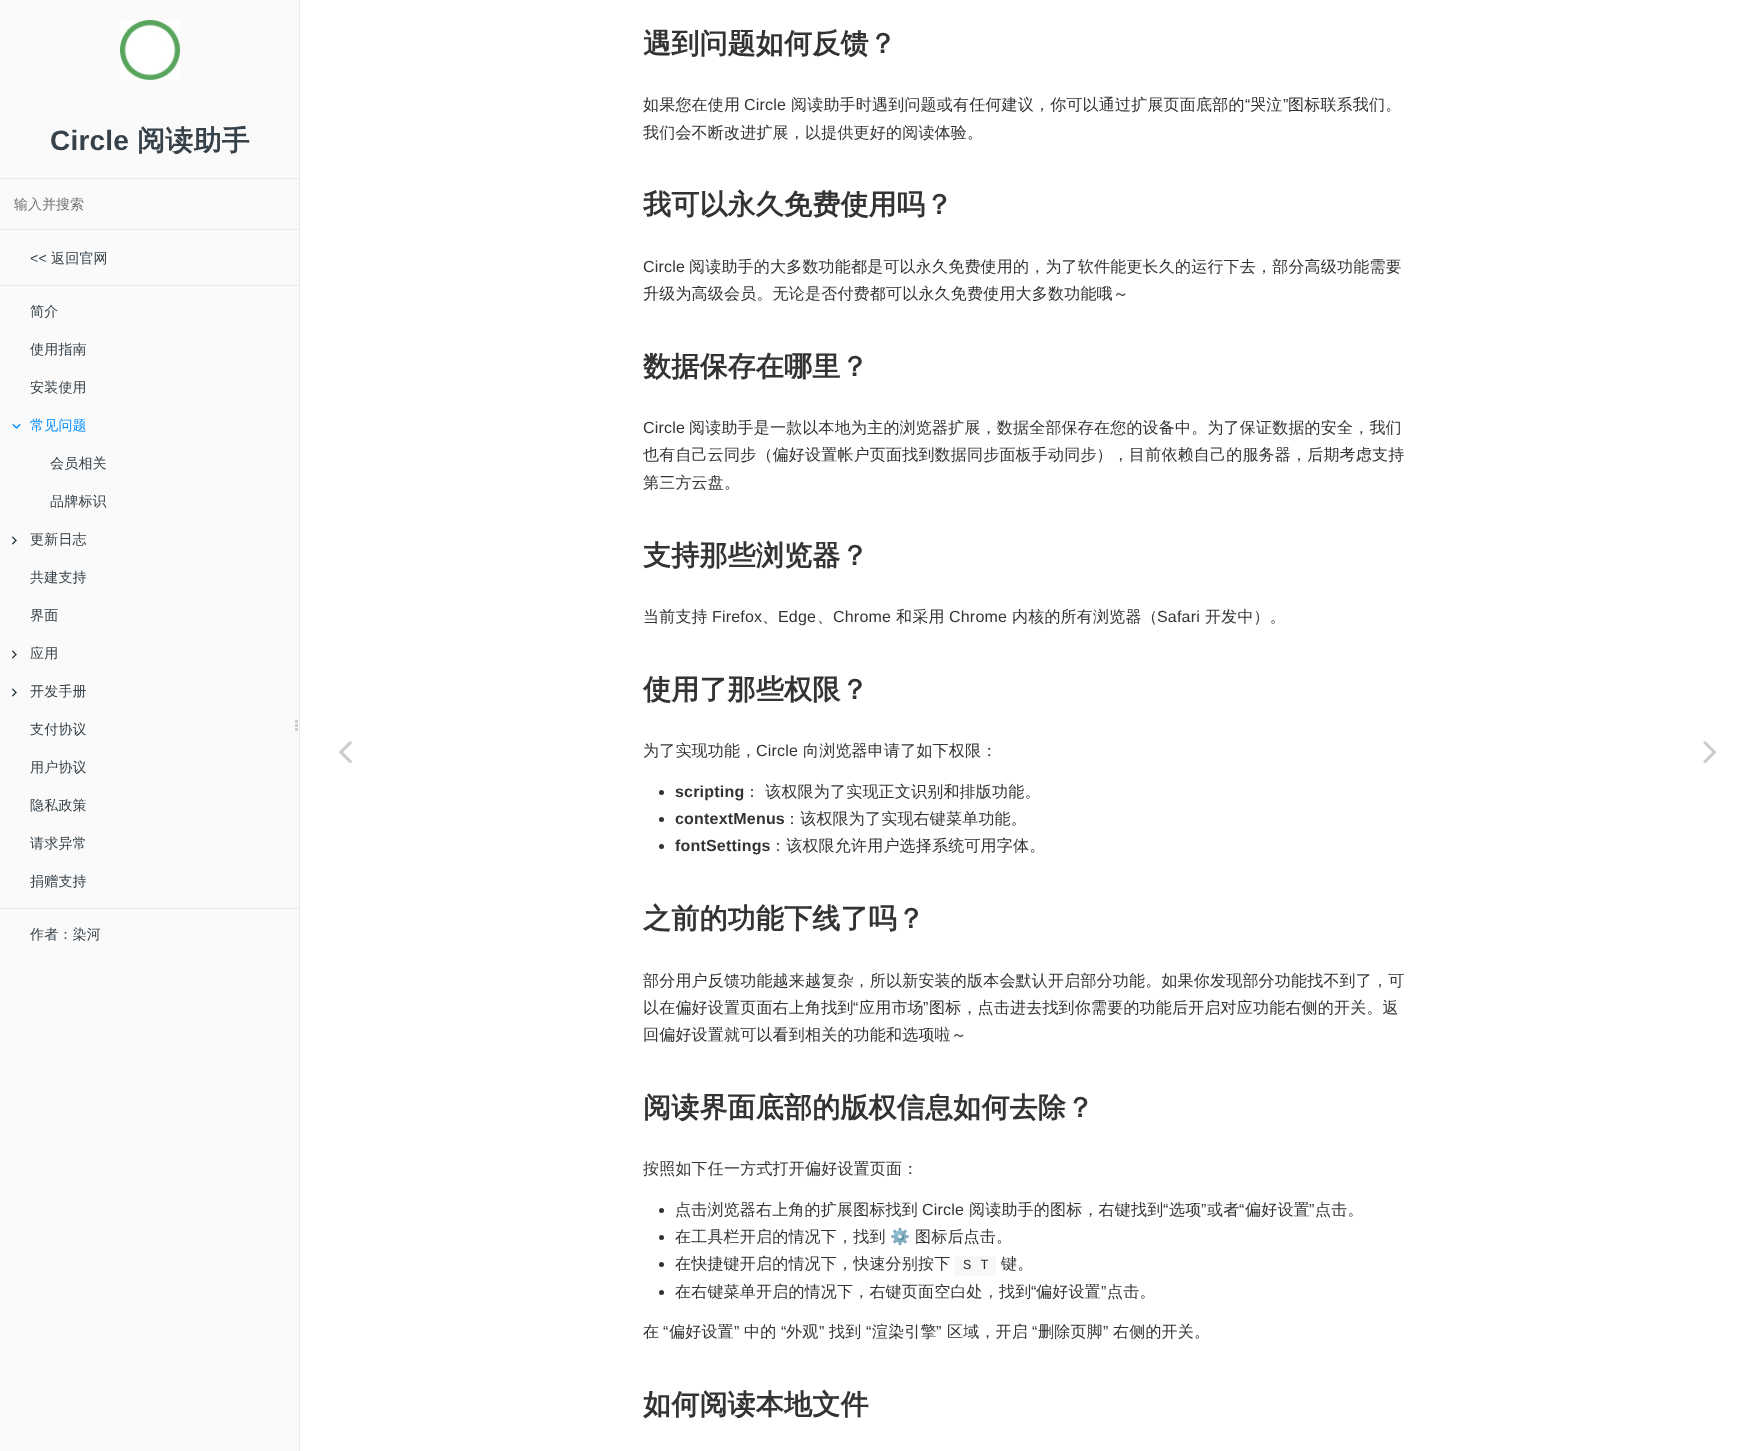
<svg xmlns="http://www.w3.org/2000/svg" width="1755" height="1451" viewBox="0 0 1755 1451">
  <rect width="100%" height="100%" fill="rgb(255,255,255)"/>
  <rect x="0" y="0" width="299" height="1451" fill="rgb(250,250,250)"/>
  <rect x="299" y="0" width="1" height="1451" fill="rgb(233,233,233)"/>
  <image x="120" y="20" width="60" height="60" href="pic1.png"/>
  <text x="50" y="150" font-family="Liberation Sans" font-size="28" font-weight="bold" letter-spacing="0.2" fill="rgb(54,65,73)">Circle</text>
  <text x="137" y="150" font-family="WenQuanYi Zen Hei" font-size="28" font-weight="bold" letter-spacing="0.2" fill="rgb(54,65,73)">阅读助手</text>
  <rect x="0" y="178" width="299" height="1" fill="rgb(233,233,233)"/>
  <rect x="0" y="229" width="299" height="1" fill="rgb(233,233,233)"/>
  <text x="14" y="209" font-family="WenQuanYi Zen Hei" font-size="14" font-weight="500" fill="rgb(117,117,117)">输入并搜索</text>
  <text x="30" y="263" font-family="Liberation Sans" font-size="14" letter-spacing="0.2" fill="rgb(54,65,73)">&lt;&lt;</text>
  <text x="51" y="263" font-family="WenQuanYi Zen Hei" font-size="14" font-weight="500" letter-spacing="0.2" fill="rgb(54,65,73)">返回官网</text>
  <rect x="0" y="285" width="299" height="1" fill="rgb(233,233,233)"/>
  <g font-family="WenQuanYi Zen Hei" font-size="14" font-weight="500" letter-spacing="0.2" fill="rgb(54,65,73)">
    <text x="30" y="316">简介</text>
    <text x="30" y="354">使用指南</text>
    <text x="30" y="392">安装使用</text>
  </g>
  <image x="12" y="424" width="9" height="5" href="pic2.png"/>
  <text x="30" y="430" font-family="WenQuanYi Zen Hei" font-size="14" font-weight="500" letter-spacing="0.2" fill="rgb(0,140,255)">常见问题</text>
  <image x="12" y="424" width="9" height="5" href="pic3.png"/>
  <g font-family="WenQuanYi Zen Hei" font-size="14" font-weight="500" letter-spacing="0.2" fill="rgb(54,65,73)">
    <text x="50" y="468">会员相关</text>
    <text x="50" y="506">品牌标识</text>
  </g>
  <image x="12" y="536" width="5" height="9" href="pic4.png"/>
  <text x="30" y="544" font-family="WenQuanYi Zen Hei" font-size="14" font-weight="500" letter-spacing="0.2" fill="rgb(54,65,73)">更新日志</text>
  <image x="12" y="536" width="5" height="9" href="pic5.png"/>
  <g font-family="WenQuanYi Zen Hei" font-size="14" font-weight="500" letter-spacing="0.2" fill="rgb(54,65,73)">
    <text x="30" y="582">共建支持</text>
    <text x="30" y="620">界面</text>
  </g>
  <image x="12" y="650" width="5" height="9" href="pic4.png"/>
  <text x="30" y="658" font-family="WenQuanYi Zen Hei" font-size="14" font-weight="500" letter-spacing="0.2" fill="rgb(54,65,73)">应用</text>
  <image x="12" y="650" width="5" height="9" href="pic5.png"/>
  <image x="12" y="688" width="5" height="9" href="pic4.png"/>
  <text x="30" y="696" font-family="WenQuanYi Zen Hei" font-size="14" font-weight="500" letter-spacing="0.2" fill="rgb(54,65,73)">开发手册</text>
  <image x="12" y="688" width="5" height="9" href="pic5.png"/>
  <g font-family="WenQuanYi Zen Hei" font-size="14" font-weight="500" letter-spacing="0.2" fill="rgb(54,65,73)">
    <text x="30" y="734">支付协议</text>
    <text x="30" y="772">用户协议</text>
    <text x="30" y="810">隐私政策</text>
    <text x="30" y="848">请求异常</text>
    <text x="30" y="886">捐赠支持</text>
  </g>
  <rect x="0" y="908" width="299" height="1" fill="rgb(233,233,233)"/>
  <text x="30" y="939" font-family="WenQuanYi Zen Hei" font-size="14" font-weight="500" letter-spacing="0.2" fill="rgb(54,65,73)">作者：染河</text>
  <image x="295" y="720" width="3" height="11" href="pic6.png"/>
  <image x="339" y="741" width="13" height="23" href="pic7.png"/>
  <text x="643" y="53" font-family="WenQuanYi Zen Hei" font-size="28" font-weight="bold" letter-spacing="0.2" fill="rgb(51,51,51)">遇到问题如何反馈？</text>
  <text x="643" y="110" font-family="WenQuanYi Zen Hei" font-size="16" font-weight="500" letter-spacing="0.2" fill="rgb(51,51,51)">如果您在使用</text>
  <text x="744" y="110" font-family="Liberation Sans" font-size="16" letter-spacing="0.2" fill="rgb(51,51,51)">Circle</text>
  <text x="791" y="110" font-family="WenQuanYi Zen Hei" font-size="16" font-weight="500" letter-spacing="0.2" fill="rgb(51,51,51)">阅读助手时遇到问题或有任何建议，你可以通过扩展页面底部的</text>
  <text x="1245" y="110" font-family="Liberation Sans" font-size="16" letter-spacing="0.2" fill="rgb(51,51,51)">“</text>
  <text x="1250" y="110" font-family="WenQuanYi Zen Hei" font-size="16" font-weight="500" letter-spacing="0.2" fill="rgb(51,51,51)">哭泣</text>
  <text x="1283" y="110" font-family="Liberation Sans" font-size="16" letter-spacing="0.2" fill="rgb(51,51,51)">”</text>
  <g font-family="WenQuanYi Zen Hei" font-size="16" font-weight="500" letter-spacing="0.2" fill="rgb(51,51,51)">
    <text x="1288" y="110">图标联系我们。</text>
    <text x="643" y="138">我们会不断改进扩展，以提供更好的阅读体验。</text>
  </g>
  <text x="643" y="214" font-family="WenQuanYi Zen Hei" font-size="28" font-weight="bold" letter-spacing="0.2" fill="rgb(51,51,51)">我可以永久免费使用吗？</text>
  <text x="643" y="272" font-family="Liberation Sans" font-size="16" letter-spacing="0.2" fill="rgb(51,51,51)">Circle</text>
  <g font-family="WenQuanYi Zen Hei" font-size="16" font-weight="500" letter-spacing="0.2" fill="rgb(51,51,51)">
    <text x="689" y="272">阅读助手的大多数功能都是可以永久免费使用的，为了软件能更长久的运行下去，部分高级功能需要</text>
    <text x="643" y="299">升级为高级会员。无论是否付费都可以永久免费使用大多数功能哦～</text>
  </g>
  <text x="643" y="376" font-family="WenQuanYi Zen Hei" font-size="28" font-weight="bold" letter-spacing="0.2" fill="rgb(51,51,51)">数据保存在哪里？</text>
  <text x="643" y="433" font-family="Liberation Sans" font-size="16" letter-spacing="0.2" fill="rgb(51,51,51)">Circle</text>
  <g font-family="WenQuanYi Zen Hei" font-size="16" font-weight="500" letter-spacing="0.2" fill="rgb(51,51,51)">
    <text x="689" y="433">阅读助手是一款以本地为主的浏览器扩展，数据全部保存在您的设备中。为了保证数据的安全，我们</text>
    <text>
      <tspan x="643" y="460">也有自己云同步（偏好设置帐户页面找到数据同步面板手动同步），目前依赖自己的服务器，后期考虑支持</tspan>
      <tspan x="643" y="488">第三方云盘。</tspan>
    </text>
  </g>
  <text x="643" y="565" font-family="WenQuanYi Zen Hei" font-size="28" font-weight="bold" letter-spacing="0.2" fill="rgb(51,51,51)">支持那些浏览器？</text>
  <text x="643" y="622" font-family="WenQuanYi Zen Hei" font-size="16" font-weight="500" letter-spacing="0.2" fill="rgb(51,51,51)">当前支持</text>
  <text x="712" y="622" font-family="Liberation Sans" font-size="16" letter-spacing="0.2" fill="rgb(51,51,51)">Firefox</text>
  <text x="762" y="622" font-family="WenQuanYi Zen Hei" font-size="16" font-weight="500" letter-spacing="0.2" fill="rgb(51,51,51)">、</text>
  <text x="778" y="622" font-family="Liberation Sans" font-size="16" letter-spacing="0.2" fill="rgb(51,51,51)">Edge</text>
  <text x="817" y="622" font-family="WenQuanYi Zen Hei" font-size="16" font-weight="500" letter-spacing="0.2" fill="rgb(51,51,51)">、</text>
  <text x="833" y="622" font-family="Liberation Sans" font-size="16" letter-spacing="0.2" fill="rgb(51,51,51)">Chrome</text>
  <text x="896" y="622" font-family="WenQuanYi Zen Hei" font-size="16" font-weight="500" letter-spacing="0.2" fill="rgb(51,51,51)">和采用</text>
  <text x="949" y="622" font-family="Liberation Sans" font-size="16" letter-spacing="0.2" fill="rgb(51,51,51)">Chrome</text>
  <text x="1012" y="622" font-family="WenQuanYi Zen Hei" font-size="16" font-weight="500" letter-spacing="0.2" fill="rgb(51,51,51)">内核的所有浏览器（</text>
  <text x="1157" y="622" font-family="Liberation Sans" font-size="16" letter-spacing="0.2" fill="rgb(51,51,51)">Safari</text>
  <text x="1205" y="622" font-family="WenQuanYi Zen Hei" font-size="16" font-weight="500" letter-spacing="0.2" fill="rgb(51,51,51)">开发中）。</text>
  <text x="643" y="699" font-family="WenQuanYi Zen Hei" font-size="28" font-weight="bold" letter-spacing="0.2" fill="rgb(51,51,51)">使用了那些权限？</text>
  <text x="643" y="756" font-family="WenQuanYi Zen Hei" font-size="16" font-weight="500" letter-spacing="0.2" fill="rgb(51,51,51)">为了实现功能，</text>
  <text x="756" y="756" font-family="Liberation Sans" font-size="16" letter-spacing="0.2" fill="rgb(51,51,51)">Circle</text>
  <text x="803" y="756" font-family="WenQuanYi Zen Hei" font-size="16" font-weight="500" letter-spacing="0.2" fill="rgb(51,51,51)">向浏览器申请了如下权限：</text>
  <circle cx="661.5" cy="792.5" r="2.5" fill="rgb(51,51,51)"/>
  <text x="675" y="797" font-family="Liberation Sans" font-size="16" font-weight="bold" letter-spacing="0.2" fill="rgb(51,51,51)">scripting</text>
  <text x="744" y="797" font-family="WenQuanYi Zen Hei" font-size="16" font-weight="500" letter-spacing="0.2" fill="rgb(51,51,51)">： 该权限为了实现正文识别和排版功能。</text>
  <circle cx="661.5" cy="819.5" r="2.5" fill="rgb(51,51,51)"/>
  <text x="675" y="824" font-family="Liberation Sans" font-size="16" font-weight="bold" letter-spacing="0.2" fill="rgb(51,51,51)">contextMenus</text>
  <text x="784" y="824" font-family="WenQuanYi Zen Hei" font-size="16" font-weight="500" letter-spacing="0.2" fill="rgb(51,51,51)">：该权限为了实现右键菜单功能。</text>
  <circle cx="661.5" cy="846.5" r="2.5" fill="rgb(51,51,51)"/>
  <text x="675" y="851" font-family="Liberation Sans" font-size="16" font-weight="bold" letter-spacing="0.2" fill="rgb(51,51,51)">fontSettings</text>
  <text x="770" y="851" font-family="WenQuanYi Zen Hei" font-size="16" font-weight="500" letter-spacing="0.2" fill="rgb(51,51,51)">：该权限允许用户选择系统可用字体。</text>
  <text x="643" y="928" font-family="WenQuanYi Zen Hei" font-size="28" font-weight="bold" letter-spacing="0.2" fill="rgb(51,51,51)">之前的功能下线了吗？</text>
  <g font-family="WenQuanYi Zen Hei" font-size="16" font-weight="500" letter-spacing="0.2" fill="rgb(51,51,51)">
    <text>
      <tspan x="643" y="986">部分用户反馈功能越来越复杂，所以新安装的版本会默认开启部分功能。如果你发现部分功能找不到了，可</tspan>
      <tspan x="643" y="1013">以在偏好设置页面右上角找到</tspan>
    </text>
  </g>
  <text x="853" y="1013" font-family="Liberation Sans" font-size="16" letter-spacing="0.2" fill="rgb(51,51,51)">“</text>
  <text x="859" y="1013" font-family="WenQuanYi Zen Hei" font-size="16" font-weight="500" letter-spacing="0.2" fill="rgb(51,51,51)">应用市场</text>
  <text x="923" y="1013" font-family="Liberation Sans" font-size="16" letter-spacing="0.2" fill="rgb(51,51,51)">”</text>
  <g font-family="WenQuanYi Zen Hei" font-size="16" font-weight="500" letter-spacing="0.2" fill="rgb(51,51,51)">
    <text x="929" y="1013">图标，点击进去找到你需要的功能后开启对应功能右侧的开关。返</text>
    <text x="643" y="1040">回偏好设置就可以看到相关的功能和选项啦～</text>
  </g>
  <text x="643" y="1117" font-family="WenQuanYi Zen Hei" font-size="28" font-weight="bold" letter-spacing="0.2" fill="rgb(51,51,51)">阅读界面底部的版权信息如何去除？</text>
  <g font-family="WenQuanYi Zen Hei" font-size="16" font-weight="500" letter-spacing="0.2" fill="rgb(51,51,51)">
    <text x="643" y="1174">按照如下任一方式打开偏好设置页面：</text>
    <text x="675" y="1215">点击浏览器右上角的扩展图标找到</text>
  </g>
  <text x="922" y="1215" font-family="Liberation Sans" font-size="16" letter-spacing="0.2" fill="rgb(51,51,51)">Circle</text>
  <text x="969" y="1215" font-family="WenQuanYi Zen Hei" font-size="16" font-weight="500" letter-spacing="0.2" fill="rgb(51,51,51)">阅读助手的图标，右键找到</text>
  <text x="1163" y="1215" font-family="Liberation Sans" font-size="16" letter-spacing="0.2" fill="rgb(51,51,51)">“</text>
  <text x="1169" y="1215" font-family="WenQuanYi Zen Hei" font-size="16" font-weight="500" letter-spacing="0.2" fill="rgb(51,51,51)">选项</text>
  <text x="1201" y="1215" font-family="Liberation Sans" font-size="16" letter-spacing="0.2" fill="rgb(51,51,51)">”</text>
  <text x="1207" y="1215" font-family="WenQuanYi Zen Hei" font-size="16" font-weight="500" letter-spacing="0.2" fill="rgb(51,51,51)">或者</text>
  <text x="1239" y="1215" font-family="Liberation Sans" font-size="16" letter-spacing="0.2" fill="rgb(51,51,51)">“</text>
  <text x="1245" y="1215" font-family="WenQuanYi Zen Hei" font-size="16" font-weight="500" letter-spacing="0.2" fill="rgb(51,51,51)">偏好设置</text>
  <text x="1309" y="1215" font-family="Liberation Sans" font-size="16" letter-spacing="0.2" fill="rgb(51,51,51)">”</text>
  <text x="1315" y="1215" font-family="WenQuanYi Zen Hei" font-size="16" font-weight="500" letter-spacing="0.2" fill="rgb(51,51,51)">点击。</text>
  <circle cx="661.5" cy="1210.5" r="2.5" fill="rgb(51,51,51)"/>
  <circle cx="661.5" cy="1237.5" r="2.5" fill="rgb(51,51,51)"/>
  <text x="675" y="1242" font-family="WenQuanYi Zen Hei" font-size="16" font-weight="500" letter-spacing="0.2" fill="rgb(51,51,51)">在工具栏开启的情况下，找到</text>
  <text x="890" y="1242" font-family="Noto Color Emoji" font-size="16" letter-spacing="0.2" fill="rgb(51,51,51)">⚙️</text>
  <text x="915" y="1242" font-family="WenQuanYi Zen Hei" font-size="16" font-weight="500" letter-spacing="0.2" fill="rgb(51,51,51)">图标后点击。</text>
  <circle cx="661.5" cy="1264.5" r="2.5" fill="rgb(51,51,51)"/>
  <text x="675" y="1269" font-family="WenQuanYi Zen Hei" font-size="16" font-weight="500" letter-spacing="0.2" fill="rgb(51,51,51)">在快捷键开启的情况下，快速分别按下</text>
  <rect x="955" y="1256" width="41" height="20" fill="rgb(247,247,247)"/>
  <text x="963" y="1269" font-family="Liberation Mono" font-size="14" letter-spacing="0.2" fill="rgb(51,51,51)">S T</text>
  <g font-family="WenQuanYi Zen Hei" font-size="16" font-weight="500" letter-spacing="0.2" fill="rgb(51,51,51)">
    <text x="1001" y="1269">键。</text>
    <text x="675" y="1297">在右键菜单开启的情况下，右键页面空白处，找到</text>
  </g>
  <text x="1031" y="1297" font-family="Liberation Sans" font-size="16" letter-spacing="0.2" fill="rgb(51,51,51)">“</text>
  <text x="1036" y="1297" font-family="WenQuanYi Zen Hei" font-size="16" font-weight="500" letter-spacing="0.2" fill="rgb(51,51,51)">偏好设置</text>
  <text x="1101" y="1297" font-family="Liberation Sans" font-size="16" letter-spacing="0.2" fill="rgb(51,51,51)">”</text>
  <text x="1107" y="1297" font-family="WenQuanYi Zen Hei" font-size="16" font-weight="500" letter-spacing="0.2" fill="rgb(51,51,51)">点击。</text>
  <circle cx="661.5" cy="1292.5" r="2.5" fill="rgb(51,51,51)"/>
  <text x="643" y="1337" font-family="WenQuanYi Zen Hei" font-size="16" font-weight="500" letter-spacing="0.2" fill="rgb(51,51,51)">在</text>
  <text x="663" y="1337" font-family="Liberation Sans" font-size="16" letter-spacing="0.2" fill="rgb(51,51,51)">“</text>
  <text x="669" y="1337" font-family="WenQuanYi Zen Hei" font-size="16" font-weight="500" letter-spacing="0.2" fill="rgb(51,51,51)">偏好设置</text>
  <text x="734" y="1337" font-family="Liberation Sans" font-size="16" letter-spacing="0.2" fill="rgb(51,51,51)">”</text>
  <text x="744" y="1337" font-family="WenQuanYi Zen Hei" font-size="16" font-weight="500" letter-spacing="0.2" fill="rgb(51,51,51)">中的</text>
  <text x="781" y="1337" font-family="Liberation Sans" font-size="16" letter-spacing="0.2" fill="rgb(51,51,51)">“</text>
  <text x="786" y="1337" font-family="WenQuanYi Zen Hei" font-size="16" font-weight="500" letter-spacing="0.2" fill="rgb(51,51,51)">外观</text>
  <text x="819" y="1337" font-family="Liberation Sans" font-size="16" letter-spacing="0.2" fill="rgb(51,51,51)">”</text>
  <text x="829" y="1337" font-family="WenQuanYi Zen Hei" font-size="16" font-weight="500" letter-spacing="0.2" fill="rgb(51,51,51)">找到</text>
  <text x="866" y="1337" font-family="Liberation Sans" font-size="16" letter-spacing="0.2" fill="rgb(51,51,51)">“</text>
  <text x="872" y="1337" font-family="WenQuanYi Zen Hei" font-size="16" font-weight="500" letter-spacing="0.2" fill="rgb(51,51,51)">渲染引擎</text>
  <text x="936" y="1337" font-family="Liberation Sans" font-size="16" letter-spacing="0.2" fill="rgb(51,51,51)">”</text>
  <text x="947" y="1337" font-family="WenQuanYi Zen Hei" font-size="16" font-weight="500" letter-spacing="0.2" fill="rgb(51,51,51)">区域，开启</text>
  <text x="1032" y="1337" font-family="Liberation Sans" font-size="16" letter-spacing="0.2" fill="rgb(51,51,51)">“</text>
  <text x="1038" y="1337" font-family="WenQuanYi Zen Hei" font-size="16" font-weight="500" letter-spacing="0.2" fill="rgb(51,51,51)">删除页脚</text>
  <text x="1103" y="1337" font-family="Liberation Sans" font-size="16" letter-spacing="0.2" fill="rgb(51,51,51)">”</text>
  <text x="1113" y="1337" font-family="WenQuanYi Zen Hei" font-size="16" font-weight="500" letter-spacing="0.2" fill="rgb(51,51,51)">右侧的开关。</text>
  <text x="643" y="1414" font-family="WenQuanYi Zen Hei" font-size="28" font-weight="bold" letter-spacing="0.2" fill="rgb(51,51,51)">如何阅读本地文件</text>
  <image x="1703" y="741" width="14" height="23" href="pic8.png"/>
</svg>
